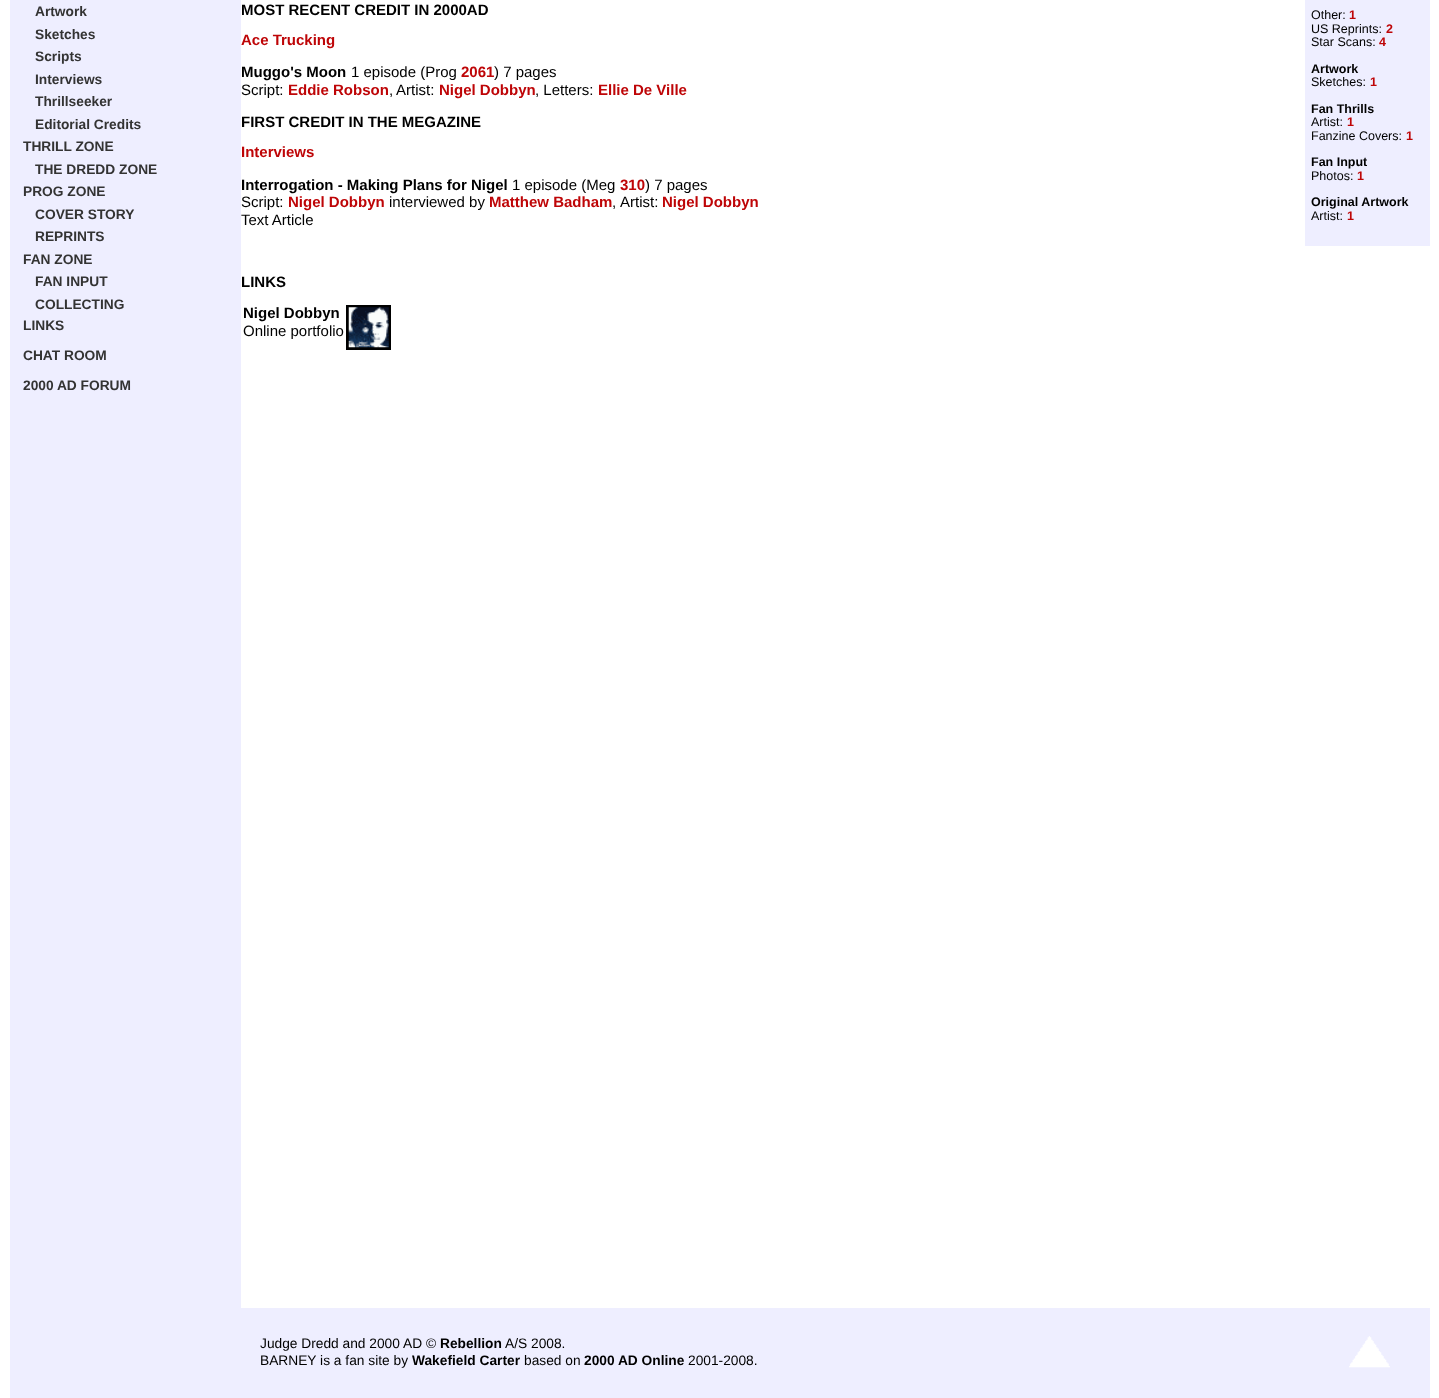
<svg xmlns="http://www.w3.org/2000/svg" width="1439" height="1398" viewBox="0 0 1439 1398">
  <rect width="100%" height="100%" fill="rgb(255,255,255)"/>
  <rect x="10" y="0" width="231" height="1398" fill="rgb(238,238,255)"/>
  <g font-family="Liberation Sans" font-size="13.75" font-weight="bold" fill="rgb(51,51,51)">
    <text>
      <tspan x="35" y="16">Artwork</tspan>
      <tspan x="35" y="39">Sketches</tspan>
      <tspan x="35" y="61">Scripts</tspan>
      <tspan x="35" y="84">Interviews</tspan>
      <tspan x="35" y="106">Thrillseeker</tspan>
      <tspan x="35" y="129">Editorial Credits</tspan>
    </text>
    <text x="23" y="151">THRILL ZONE</text>
    <text x="35" y="174">THE DREDD ZONE</text>
    <text x="23" y="196">PROG ZONE</text>
    <text>
      <tspan x="35" y="219">COVER STORY</tspan>
      <tspan x="35" y="241">REPRINTS</tspan>
    </text>
    <text x="23" y="264">FAN ZONE</text>
    <text>
      <tspan x="35" y="286">FAN INPUT</tspan>
      <tspan x="35" y="309">COLLECTING</tspan>
    </text>
    <text x="23" y="330">LINKS</text>
    <text x="23" y="360">CHAT ROOM</text>
    <text x="23" y="390">2000 AD FORUM</text>
  </g>
  <text x="241" y="15" font-family="Liberation Sans" font-size="15" font-weight="bold" fill="rgb(0,0,0)">MOST RECENT CREDIT IN 2000AD</text>
  <rect x="1305" y="0" width="125" height="246" fill="rgb(238,238,255)"/>
  <text x="1311" y="19" font-family="Liberation Sans" font-size="12.5" fill="rgb(0,0,0)">Other:</text>
  <text x="1349" y="19" font-family="Liberation Sans" font-size="12.5" font-weight="bold" fill="rgb(190,5,7)">1</text>
  <text x="1311" y="33" font-family="Liberation Sans" font-size="12.5" fill="rgb(0,0,0)">US Reprints:</text>
  <text x="1386" y="33" font-family="Liberation Sans" font-size="12.5" font-weight="bold" fill="rgb(190,5,7)">2</text>
  <text x="1311" y="46" font-family="Liberation Sans" font-size="12.5" fill="rgb(0,0,0)">Star Scans:</text>
  <text x="1379" y="46" font-family="Liberation Sans" font-size="12.5" font-weight="bold" fill="rgb(190,5,7)">4</text>
  <text x="1311" y="73" font-family="Liberation Sans" font-size="12.5" font-weight="bold" fill="rgb(0,0,0)">Artwork</text>
  <text x="1311" y="86" font-family="Liberation Sans" font-size="12.5" fill="rgb(0,0,0)">Sketches:</text>
  <text x="1370" y="86" font-family="Liberation Sans" font-size="12.5" font-weight="bold" fill="rgb(190,5,7)">1</text>
  <text x="1311" y="113" font-family="Liberation Sans" font-size="12.5" font-weight="bold" fill="rgb(0,0,0)">Fan Thrills</text>
  <text x="1311" y="126" font-family="Liberation Sans" font-size="12.5" fill="rgb(0,0,0)">Artist:</text>
  <text x="1347" y="126" font-family="Liberation Sans" font-size="12.5" font-weight="bold" fill="rgb(190,5,7)">1</text>
  <text x="1311" y="140" font-family="Liberation Sans" font-size="12.5" fill="rgb(0,0,0)">Fanzine Covers:</text>
  <text x="1406" y="140" font-family="Liberation Sans" font-size="12.5" font-weight="bold" fill="rgb(190,5,7)">1</text>
  <text x="1311" y="166" font-family="Liberation Sans" font-size="12.5" font-weight="bold" fill="rgb(0,0,0)">Fan Input</text>
  <text x="1311" y="180" font-family="Liberation Sans" font-size="12.5" fill="rgb(0,0,0)">Photos:</text>
  <text x="1357" y="180" font-family="Liberation Sans" font-size="12.5" font-weight="bold" fill="rgb(190,5,7)">1</text>
  <text x="1311" y="206" font-family="Liberation Sans" font-size="12.5" font-weight="bold" fill="rgb(0,0,0)">Original Artwork</text>
  <text x="1311" y="220" font-family="Liberation Sans" font-size="12.5" fill="rgb(0,0,0)">Artist:</text>
  <text x="1347" y="220" font-family="Liberation Sans" font-size="12.5" font-weight="bold" fill="rgb(190,5,7)">1</text>
  <text x="241" y="45" font-family="Liberation Sans" font-size="15" font-weight="bold" fill="rgb(190,5,7)">Ace Trucking</text>
  <text x="241" y="77" font-family="Liberation Sans" font-size="15" font-weight="bold" fill="rgb(0,0,0)">Muggo's Moon</text>
  <text x="351" y="77" font-family="Liberation Sans" font-size="15" fill="rgb(0,0,0)">1 episode (Prog</text>
  <text x="461" y="77" font-family="Liberation Sans" font-size="15" font-weight="bold" fill="rgb(190,5,7)">2061</text>
  <g font-family="Liberation Sans" font-size="15" fill="rgb(0,0,0)">
    <text x="494" y="77">) 7 pages</text>
    <text x="241" y="95">Script:</text>
  </g>
  <text x="288" y="95" font-family="Liberation Sans" font-size="15" font-weight="bold" fill="rgb(190,5,7)">Eddie Robson</text>
  <g font-family="Liberation Sans" font-size="15" fill="rgb(0,0,0)">
    <text x="389" y="95">,</text>
    <text x="396" y="95">Artist:</text>
  </g>
  <text x="439" y="95" font-family="Liberation Sans" font-size="15" font-weight="bold" fill="rgb(190,5,7)">Nigel Dobbyn</text>
  <text x="535" y="95" font-family="Liberation Sans" font-size="15" fill="rgb(0,0,0)">, Letters:</text>
  <text x="598" y="95" font-family="Liberation Sans" font-size="15" font-weight="bold" fill="rgb(190,5,7)">Ellie De Ville</text>
  <text x="241" y="127" font-family="Liberation Sans" font-size="15" font-weight="bold" fill="rgb(0,0,0)">FIRST CREDIT IN THE MEGAZINE</text>
  <text x="241" y="157" font-family="Liberation Sans" font-size="15" font-weight="bold" fill="rgb(190,5,7)">Interviews</text>
  <text x="241" y="190" font-family="Liberation Sans" font-size="15" font-weight="bold" fill="rgb(0,0,0)">Interrogation - Making Plans for Nigel</text>
  <text x="512" y="190" font-family="Liberation Sans" font-size="15" fill="rgb(0,0,0)">1 episode (Meg</text>
  <text x="620" y="190" font-family="Liberation Sans" font-size="15" font-weight="bold" fill="rgb(190,5,7)">310</text>
  <g font-family="Liberation Sans" font-size="15" fill="rgb(0,0,0)">
    <text x="645" y="190">) 7 pages</text>
    <text x="241" y="207">Script:</text>
  </g>
  <text x="288" y="207" font-family="Liberation Sans" font-size="15" font-weight="bold" fill="rgb(190,5,7)">Nigel Dobbyn</text>
  <text x="389" y="207" font-family="Liberation Sans" font-size="15" fill="rgb(0,0,0)">interviewed by</text>
  <text x="489" y="207" font-family="Liberation Sans" font-size="15" font-weight="bold" fill="rgb(190,5,7)">Matthew Badham</text>
  <g font-family="Liberation Sans" font-size="15" fill="rgb(0,0,0)">
    <text x="612" y="207">,</text>
    <text x="620" y="207">Artist:</text>
  </g>
  <text x="662" y="207" font-family="Liberation Sans" font-size="15" font-weight="bold" fill="rgb(190,5,7)">Nigel Dobbyn</text>
  <text x="241" y="225" font-family="Liberation Sans" font-size="15" fill="rgb(0,0,0)">Text Article</text>
  <g font-family="Liberation Sans" font-size="15" font-weight="bold" fill="rgb(0,0,0)">
    <text x="241" y="287">LINKS</text>
    <text x="243" y="318">Nigel Dobbyn</text>
  </g>
  <text x="243" y="336" font-family="Liberation Sans" font-size="15" fill="rgb(0,0,0)">Online portfolio</text>
  <rect x="347.5" y="306.5" width="42" height="42" fill="none" stroke="rgb(0,0,0)" stroke-width="3"/>
  <image x="348" y="307" width="41" height="41" href="pic1.png"/>
  <rect x="241" y="1308" width="1189" height="90" fill="rgb(238,238,255)"/>
  <text x="260" y="1348" font-family="Liberation Sans" font-size="13.75" fill="rgb(0,0,0)">Judge Dredd and 2000 AD ©</text>
  <text x="440" y="1348" font-family="Liberation Sans" font-size="13.75" font-weight="bold" fill="rgb(0,0,0)">Rebellion</text>
  <text x="505" y="1348" font-family="Liberation Sans" font-size="13.75" fill="rgb(0,0,0)">A/S 2008.</text>
  <image x="1349" y="1336" width="41" height="32" href="pic2.png"/>
  <text x="260" y="1365" font-family="Liberation Sans" font-size="13.75" fill="rgb(0,0,0)">BARNEY is a fan site by</text>
  <text x="412" y="1365" font-family="Liberation Sans" font-size="13.75" font-weight="bold" fill="rgb(0,0,0)">Wakefield Carter</text>
  <text x="524" y="1365" font-family="Liberation Sans" font-size="13.75" fill="rgb(0,0,0)">based on</text>
  <text x="584" y="1365" font-family="Liberation Sans" font-size="13.75" font-weight="bold" fill="rgb(0,0,0)">2000 AD Online</text>
  <text x="688" y="1365" font-family="Liberation Sans" font-size="13.75" fill="rgb(0,0,0)">2001-2008.</text>
</svg>
